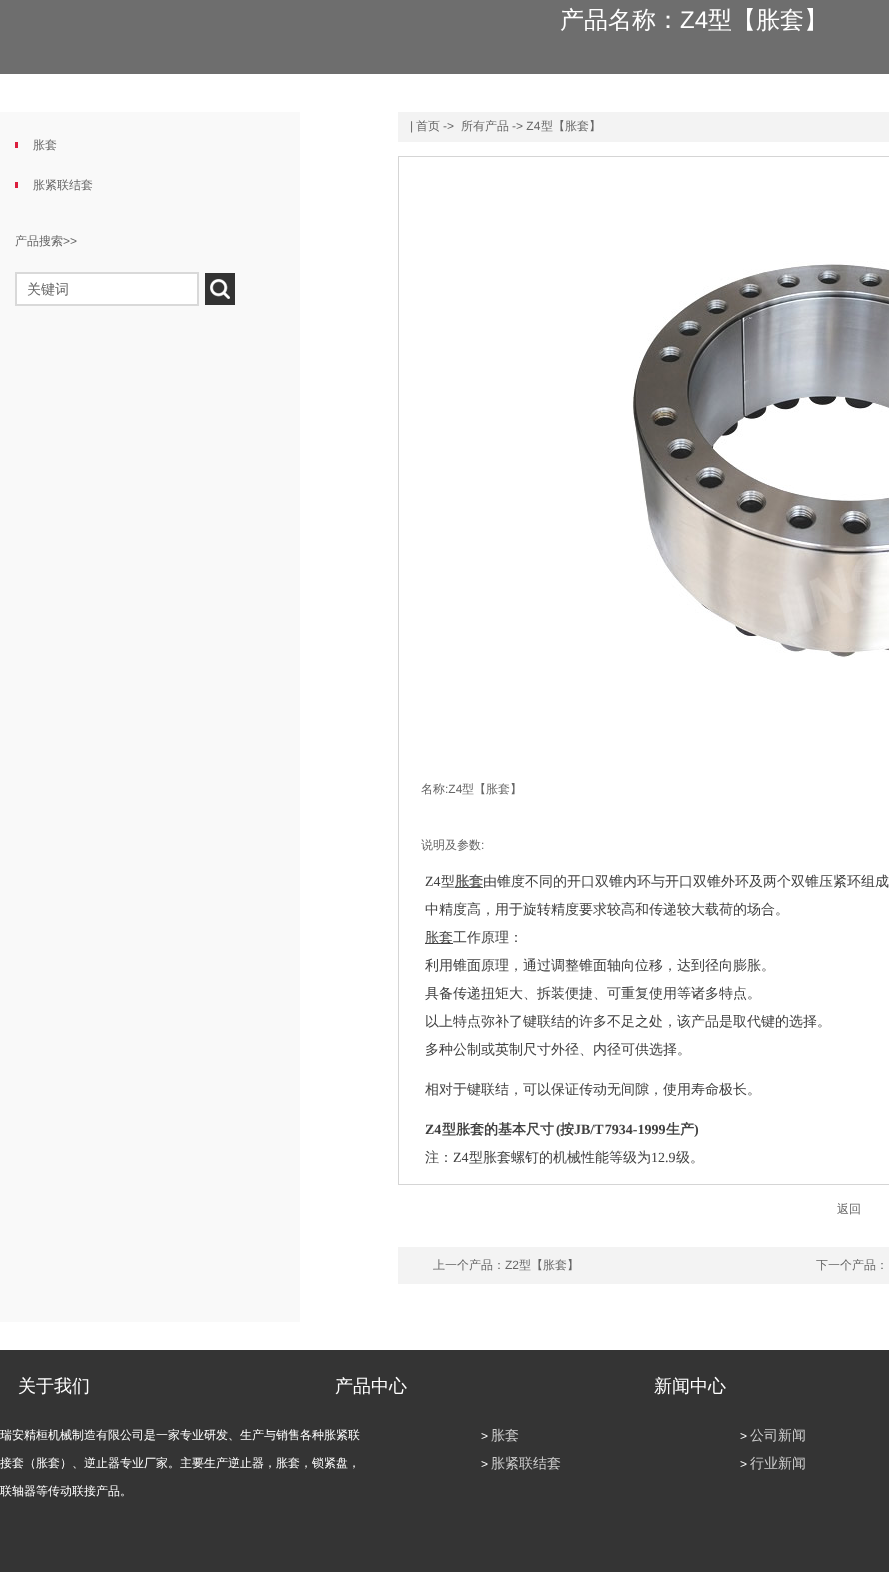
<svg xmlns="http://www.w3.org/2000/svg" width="889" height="1572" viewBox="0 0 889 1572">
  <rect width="100%" height="100%" fill="rgb(255,255,255)"/>
  <rect x="0" y="0" width="889" height="74" fill="rgb(110,110,110)"/>
  <text x="560" y="28" font-family="WenQuanYi Zen Hei" font-size="24" font-weight="500" fill="rgb(255,255,255)">产品名称：</text>
  <text x="680" y="28" font-family="Liberation Sans" font-size="24" fill="rgb(255,255,255)">Z4</text>
  <text x="708" y="28" font-family="WenQuanYi Zen Hei" font-size="24" font-weight="500" fill="rgb(255,255,255)">型【胀套】</text>
  <rect x="0" y="112" width="300" height="1210" fill="rgb(249,249,249)"/>
  <rect x="15" y="142" width="3" height="6" fill="rgb(220,31,62)"/>
  <text x="33" y="149" font-family="WenQuanYi Zen Hei" font-size="12" font-weight="500" fill="rgb(102,102,102)">胀套</text>
  <rect x="15" y="182" width="3" height="6" fill="rgb(220,31,62)"/>
  <g font-family="WenQuanYi Zen Hei" font-size="12" font-weight="500" fill="rgb(102,102,102)">
    <text x="33" y="189">胀紧联结套</text>
    <text x="15" y="245">产品搜索</text>
  </g>
  <text x="63" y="245" font-family="Liberation Sans" font-size="12" fill="rgb(102,102,102)">&gt;&gt;</text>
  <rect x="16" y="273" width="182" height="32" fill="rgb(255,255,255)" stroke="rgb(217,217,217)" stroke-width="2"/>
  <text x="27" y="294" font-family="WenQuanYi Zen Hei" font-size="14" font-weight="500" fill="rgb(102,102,102)">关键词</text>
  <rect x="205" y="273" width="30" height="32" fill="rgb(51,51,51)"/>
  <image x="210" y="279" width="20" height="20" href="pic1.png"/>
  <rect x="398" y="112" width="491" height="30" fill="rgb(243,243,243)"/>
  <text x="410" y="130" font-family="Liberation Sans" font-size="12" fill="rgb(102,102,102)">|</text>
  <text x="416" y="130" font-family="WenQuanYi Zen Hei" font-size="12" font-weight="500" fill="rgb(102,102,102)">首页</text>
  <text x="443" y="130" font-family="Liberation Sans" font-size="12" fill="rgb(102,102,102)">-&gt;</text>
  <text x="461" y="130" font-family="WenQuanYi Zen Hei" font-size="12" font-weight="500" fill="rgb(102,102,102)">所有产品</text>
  <text x="512" y="130" font-family="Liberation Sans" font-size="12" fill="rgb(102,102,102)">-&gt; Z4</text>
  <text x="541" y="130" font-family="WenQuanYi Zen Hei" font-size="12" font-weight="500" fill="rgb(102,102,102)">型【胀套】</text>
  <rect x="398.5" y="156.5" width="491" height="1028" fill="none" stroke="rgb(213,213,213)"/>
  <image x="632" y="261" width="257" height="397" href="pic2.png"/>
  <text x="421" y="793" font-family="WenQuanYi Zen Hei" font-size="12" font-weight="500" fill="rgb(102,102,102)">名称</text>
  <text x="445" y="793" font-family="Liberation Sans" font-size="12" fill="rgb(102,102,102)">:Z4</text>
  <g font-family="WenQuanYi Zen Hei" font-size="12" font-weight="500" fill="rgb(102,102,102)">
    <text x="462" y="793">型【胀套】</text>
    <text x="421" y="849">说明及参数</text>
  </g>
  <text x="481" y="849" font-family="Liberation Sans" font-size="12" fill="rgb(102,102,102)">:</text>
  <text x="425" y="886" font-family="Liberation Serif" font-size="14" fill="rgb(65,65,65)">Z4</text>
  <text x="441" y="886" font-family="WenQuanYi Zen Hei" font-size="14" font-weight="500" fill="rgb(65,65,65)">型</text>
  <rect x="455" y="887" width="28" height="1" fill="rgb(65,65,65)"/>
  <text x="455" y="886" font-family="WenQuanYi Zen Hei" font-size="14" font-weight="bold" fill="rgb(102,102,102)">胀套</text>
  <g font-family="WenQuanYi Zen Hei" font-size="14" font-weight="500" fill="rgb(65,65,65)">
    <text x="483" y="886">由锥度不同的开口双锥内环与开口双锥外环及两个双锥压紧环组成</text>
    <text x="425" y="914">中精度高，用于旋转精度要求较高和传递较大载荷的场合。</text>
  </g>
  <rect x="425" y="943" width="28" height="1" fill="rgb(65,65,65)"/>
  <g font-family="WenQuanYi Zen Hei" font-size="14" font-weight="500" fill="rgb(65,65,65)">
    <text x="425" y="942">胀套工作原理：</text>
    <text x="425" y="970">利用锥面原理，通过调整锥面轴向位移，达到径向膨胀。</text>
    <text x="425" y="998">具备传递扭矩大、拆装便捷、可重复使用等诸多特点。</text>
    <text x="425" y="1026">以上特点弥补了键联结的许多不足之处，该产品是取代键的选择。</text>
    <text x="425" y="1054">多种公制或英制尺寸外径、内径可供选择。</text>
    <text x="425" y="1094">相对于键联结，可以保证传动无间隙，使用寿命极长。</text>
  </g>
  <text x="425" y="1134" font-family="Liberation Serif" font-size="14" font-weight="bold" fill="rgb(65,65,65)">Z4</text>
  <text x="442" y="1134" font-family="WenQuanYi Zen Hei" font-size="14" font-weight="bold" fill="rgb(65,65,65)">型胀套的基本尺寸</text>
  <text x="556" y="1134" font-family="Liberation Serif" font-size="14" font-weight="bold" fill="rgb(65,65,65)">(</text>
  <text x="560" y="1134" font-family="WenQuanYi Zen Hei" font-size="14" font-weight="bold" fill="rgb(65,65,65)">按</text>
  <text x="574" y="1134" word-spacing="-2" font-family="Liberation Serif" font-size="14" font-weight="bold" fill="rgb(65,65,65)">JB/T 7934-1999</text>
  <text x="666" y="1134" font-family="WenQuanYi Zen Hei" font-size="14" font-weight="bold" fill="rgb(65,65,65)">生产</text>
  <text x="694" y="1134" font-family="Liberation Serif" font-size="14" font-weight="bold" fill="rgb(65,65,65)">)</text>
  <text x="425" y="1162" font-family="WenQuanYi Zen Hei" font-size="14" font-weight="500" fill="rgb(65,65,65)">注：</text>
  <text x="453" y="1162" font-family="Liberation Serif" font-size="14" fill="rgb(65,65,65)">Z4</text>
  <text x="469" y="1162" font-family="WenQuanYi Zen Hei" font-size="14" font-weight="500" fill="rgb(65,65,65)">型胀套螺钉的机械性能等级为</text>
  <text x="651" y="1162" font-family="Liberation Serif" font-size="14" fill="rgb(65,65,65)">12.9</text>
  <text x="676" y="1162" font-family="WenQuanYi Zen Hei" font-size="14" font-weight="500" fill="rgb(65,65,65)">级。</text>
  <text x="837" y="1213" font-family="WenQuanYi Zen Hei" font-size="12" font-weight="500" fill="rgb(102,102,102)">返回</text>
  <rect x="398" y="1247" width="491" height="37" fill="rgb(243,243,243)"/>
  <text x="433" y="1269" font-family="WenQuanYi Zen Hei" font-size="12" font-weight="500" fill="rgb(102,102,102)">上一个产品：</text>
  <text x="505" y="1269" font-family="Liberation Sans" font-size="12" fill="rgb(102,102,102)">Z2</text>
  <g font-family="WenQuanYi Zen Hei" font-size="12" font-weight="500" fill="rgb(102,102,102)">
    <text x="519" y="1269">型【胀套】</text>
    <text x="816" y="1269">下一个产品：</text>
  </g>
  <rect x="0" y="1350" width="889" height="222" fill="rgb(52,52,52)"/>
  <g font-family="WenQuanYi Zen Hei" font-size="18" font-weight="500" fill="rgb(255,255,255)">
    <text x="18" y="1392">关于我们</text>
    <text x="335" y="1392">产品中心</text>
    <text x="654" y="1392">新闻中心</text>
  </g>
  <g font-family="WenQuanYi Zen Hei" font-size="12" font-weight="500" fill="rgb(255,255,255)">
    <text x="0" y="1439">瑞安精桓机械制造有限公司是一家专业研发、生产与销售各种胀紧联</text>
    <text x="0" y="1467">接套（胀套）、逆止器专业厂家。主要生产逆止器，胀套，锁紧盘，</text>
    <text x="0" y="1495">联轴器等传动联接产品。</text>
  </g>
  <text x="481" y="1440" font-family="Liberation Sans" font-size="12" fill="rgb(255,255,255)">&gt;</text>
  <text x="491" y="1440" font-family="WenQuanYi Zen Hei" font-size="14" font-weight="500" fill="rgb(204,204,204)">胀套</text>
  <text x="481" y="1468" font-family="Liberation Sans" font-size="12" fill="rgb(255,255,255)">&gt;</text>
  <text x="491" y="1468" font-family="WenQuanYi Zen Hei" font-size="14" font-weight="500" fill="rgb(204,204,204)">胀紧联结套</text>
  <text x="740" y="1440" font-family="Liberation Sans" font-size="12" fill="rgb(255,255,255)">&gt;</text>
  <text x="750" y="1440" font-family="WenQuanYi Zen Hei" font-size="14" font-weight="500" fill="rgb(204,204,204)">公司新闻</text>
  <text x="740" y="1468" font-family="Liberation Sans" font-size="12" fill="rgb(255,255,255)">&gt;</text>
  <text x="750" y="1468" font-family="WenQuanYi Zen Hei" font-size="14" font-weight="500" fill="rgb(204,204,204)">行业新闻</text>
</svg>
